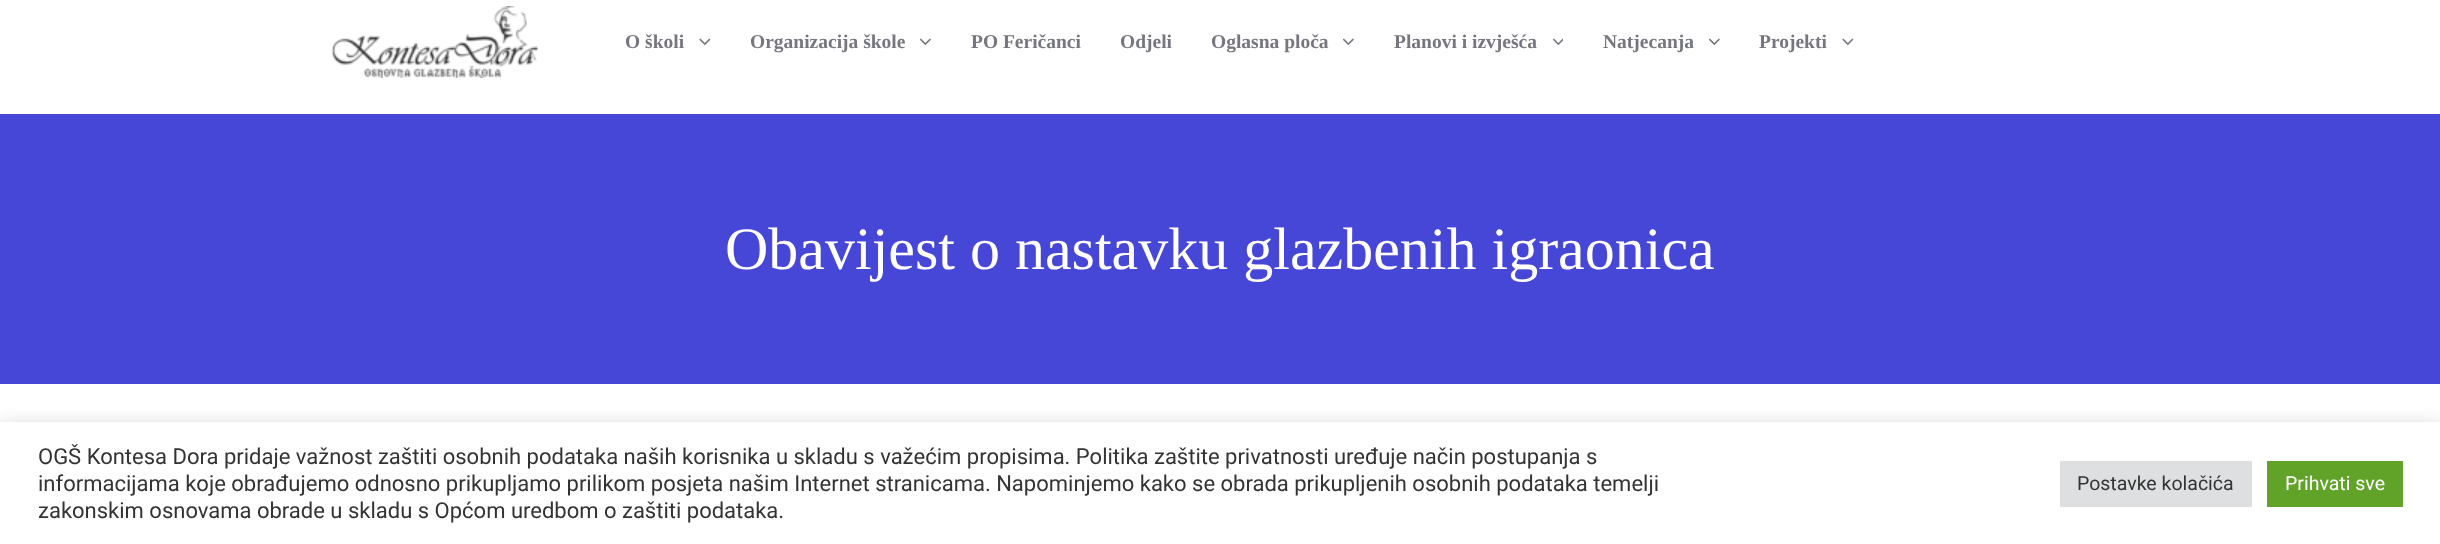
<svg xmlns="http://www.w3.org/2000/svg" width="2440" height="544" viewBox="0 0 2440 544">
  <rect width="100%" height="100%" fill="rgb(71,71,215)"/>
  <rect x="0" y="0" width="2440" height="114" fill="rgb(255,255,255)"/>
  <image x="331" y="6" width="208" height="72" href="pic1.png"/>
  <text x="625" y="48" font-family="Liberation Serif" font-size="19.5" font-weight="bold" fill="rgb(118,118,127)">O školi</text>
  <image x="699" y="38" width="12" height="8" href="pic2.png"/>
  <text x="750" y="48" font-family="Liberation Serif" font-size="19.5" font-weight="bold" fill="rgb(118,118,127)">Organizacija škole</text>
  <image x="920" y="38" width="11" height="8" href="pic3.png"/>
  <g font-family="Liberation Serif" font-size="19.5" font-weight="bold" fill="rgb(118,118,127)">
    <text x="971" y="48">PO Feričanci</text>
    <text x="1120" y="48">Odjeli</text>
    <text x="1211" y="48">Oglasna ploča</text>
  </g>
  <image x="1343" y="38" width="11" height="8" href="pic3.png"/>
  <text x="1394" y="48" font-family="Liberation Serif" font-size="19.5" font-weight="bold" fill="rgb(118,118,127)">Planovi i izvješća</text>
  <image x="1553" y="38" width="10" height="8" href="pic4.png"/>
  <text x="1603" y="48" font-family="Liberation Serif" font-size="19.5" font-weight="bold" fill="rgb(118,118,127)">Natjecanja</text>
  <image x="1709" y="38" width="11" height="8" href="pic3.png"/>
  <text x="1759" y="48" font-family="Liberation Serif" font-size="19.5" font-weight="bold" fill="rgb(118,118,127)">Projekti</text>
  <image x="1842" y="38" width="12" height="8" href="pic2.png"/>
  <text x="725" y="269" font-family="Liberation Serif" font-size="60" fill="rgb(255,255,255)">Obavijest o nastavku glazbenih igraonica</text>
  <rect x="0" y="384" width="2440" height="38" fill="rgb(255,255,255)"/>
  <rect x="0" y="420" width="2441" height="123" fill="rgba(172,171,171,0.3)" filter="blur(7.5px)"/>
  <rect x="0" y="422" width="2440" height="122" fill="rgb(255,255,255)"/>
  <g font-family="Roboto" font-size="22" fill="rgb(51,51,51)">
    <text>
      <tspan x="38" y="464">OGŠ Kontesa Dora pridaje važnost zaštiti osobnih podataka naših korisnika u skladu s važećim propisima. Politika zaštite privatnosti uređuje način postupanja s</tspan>
      <tspan x="38" y="491">informacijama koje obrađujemo odnosno prikupljamo prilikom posjeta našim Internet stranicama. Napominjemo kako se obrada prikupljenih osobnih podataka temelji</tspan>
      <tspan x="38" y="518">zakonskim osnovama obrade u skladu s Općom uredbom o zaštiti podataka.</tspan>
    </text>
  </g>
  <rect x="2060" y="461" width="192" height="46" fill="rgb(222,223,224)"/>
  <text x="2077" y="490" font-family="Roboto" font-size="19.5" fill="rgb(51,51,51)">Postavke kolačića</text>
  <rect x="2267" y="461" width="136" height="46" fill="rgb(97,162,41)"/>
  <text x="2285" y="490" font-family="Roboto" font-size="19.5" fill="rgb(255,255,255)">Prihvati sve</text>
</svg>
